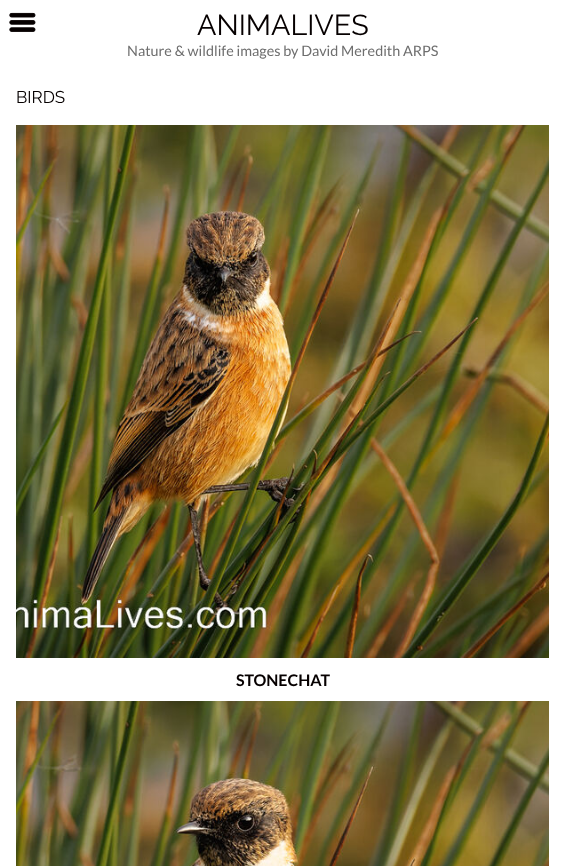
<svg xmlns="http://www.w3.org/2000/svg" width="565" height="866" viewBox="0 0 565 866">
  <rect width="100%" height="100%" fill="rgb(255,255,255)"/>
  <image x="9" y="12" width="27" height="20" href="pic1.png"/>
  <text x="197" y="35" font-family="Raleway" font-size="28.75" font-weight="100" fill="rgb(6,0,0)">ANIMALIVES</text>
  <text x="127" y="56" font-family="Lato" font-size="14.4" fill="rgb(110,110,110)">Nature &amp; wildlife images by David Meredith ARPS</text>
  <text x="16" y="103" font-family="Raleway" font-size="17" font-weight="100" fill="rgb(6,0,0)">BIRDS</text>
  <image x="16" y="125" width="533" height="533" href="pic2.png"/>
  <text x="236" y="686" font-family="Lato" font-size="16" font-weight="bold" fill="rgb(6,0,0)">STONECHAT</text>
  <image x="16" y="701" width="533" height="165" href="pic3.png"/>
</svg>
